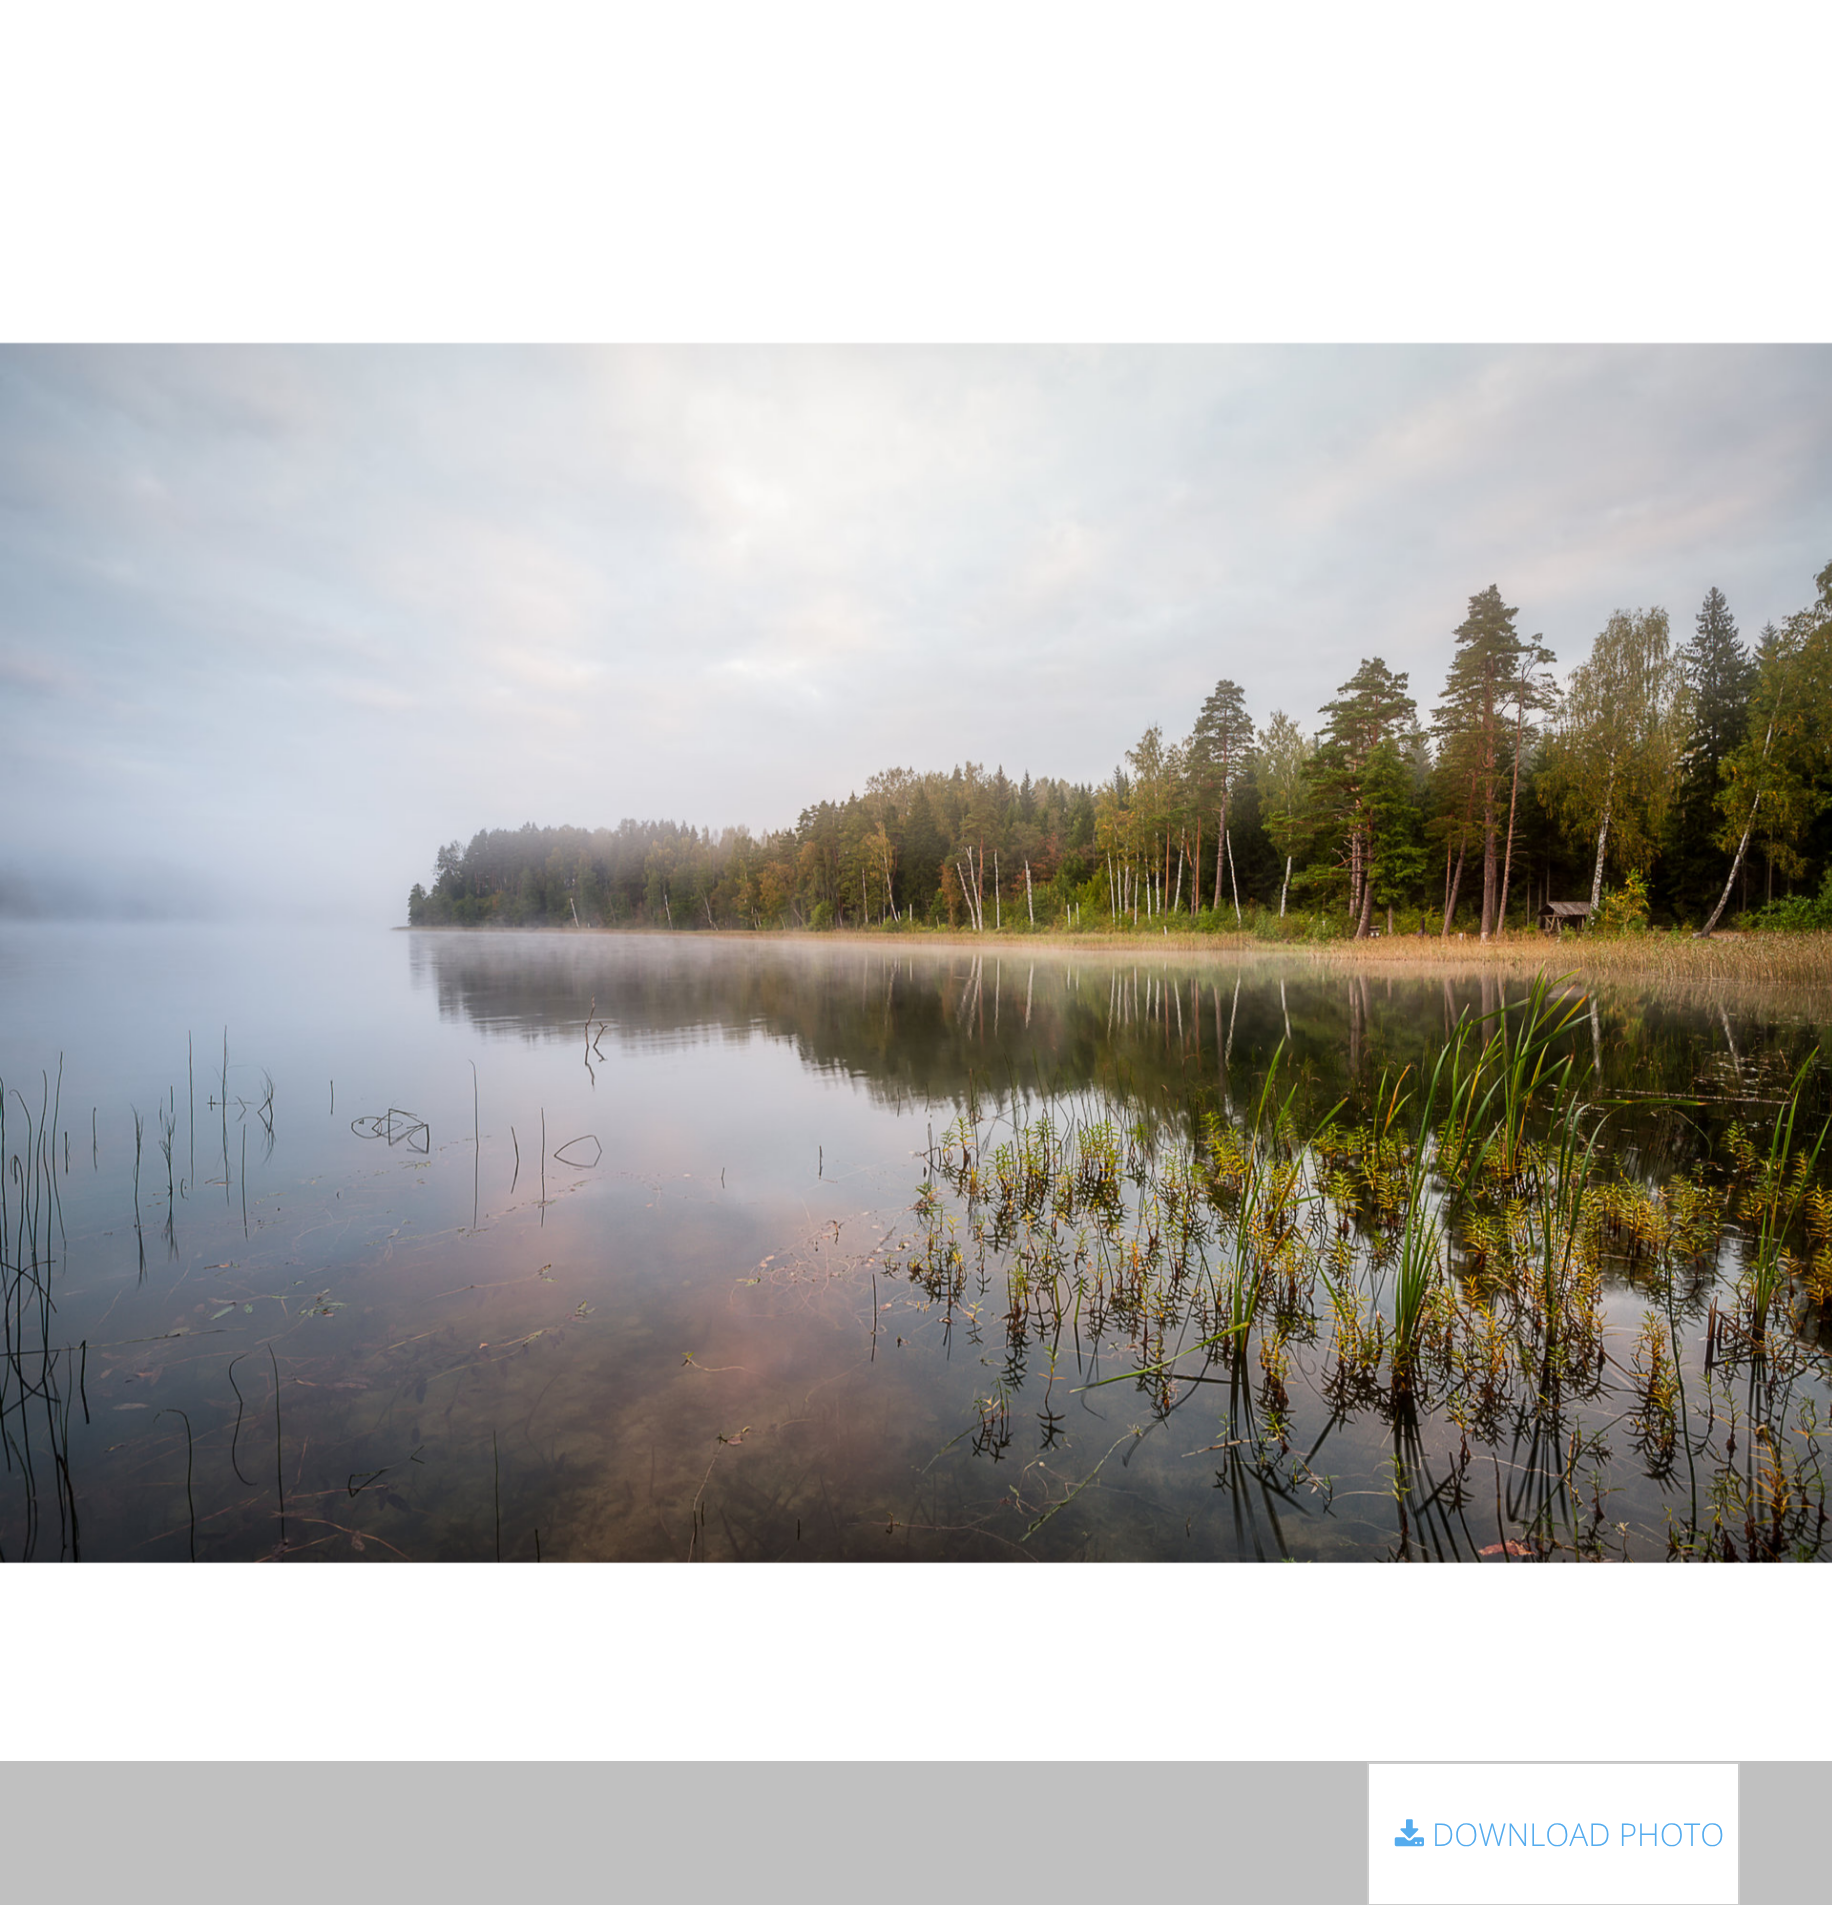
<svg xmlns="http://www.w3.org/2000/svg" width="1832" height="1905" viewBox="0 0 1832 1905">
  <rect width="100%" height="100%" fill="rgb(255,255,255)"/>
  <image x="0" y="342" width="1832" height="1222" href="pic1.png"/>
  <rect x="0" y="1761" width="1832" height="144" fill="rgb(192,192,192)"/>
  <rect x="1368" y="1763" width="371" height="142" fill="rgb(255,255,255)" stroke="rgb(204,204,204)" stroke-width="2"/>
  <image x="1394" y="1819" width="30" height="28" href="pic2.png"/>
  <text x="1432" y="1846" font-family="Open Sans" font-size="31.5" font-weight="300" fill="rgb(85,172,238)">DOWNLOAD PHOTO</text>
</svg>
